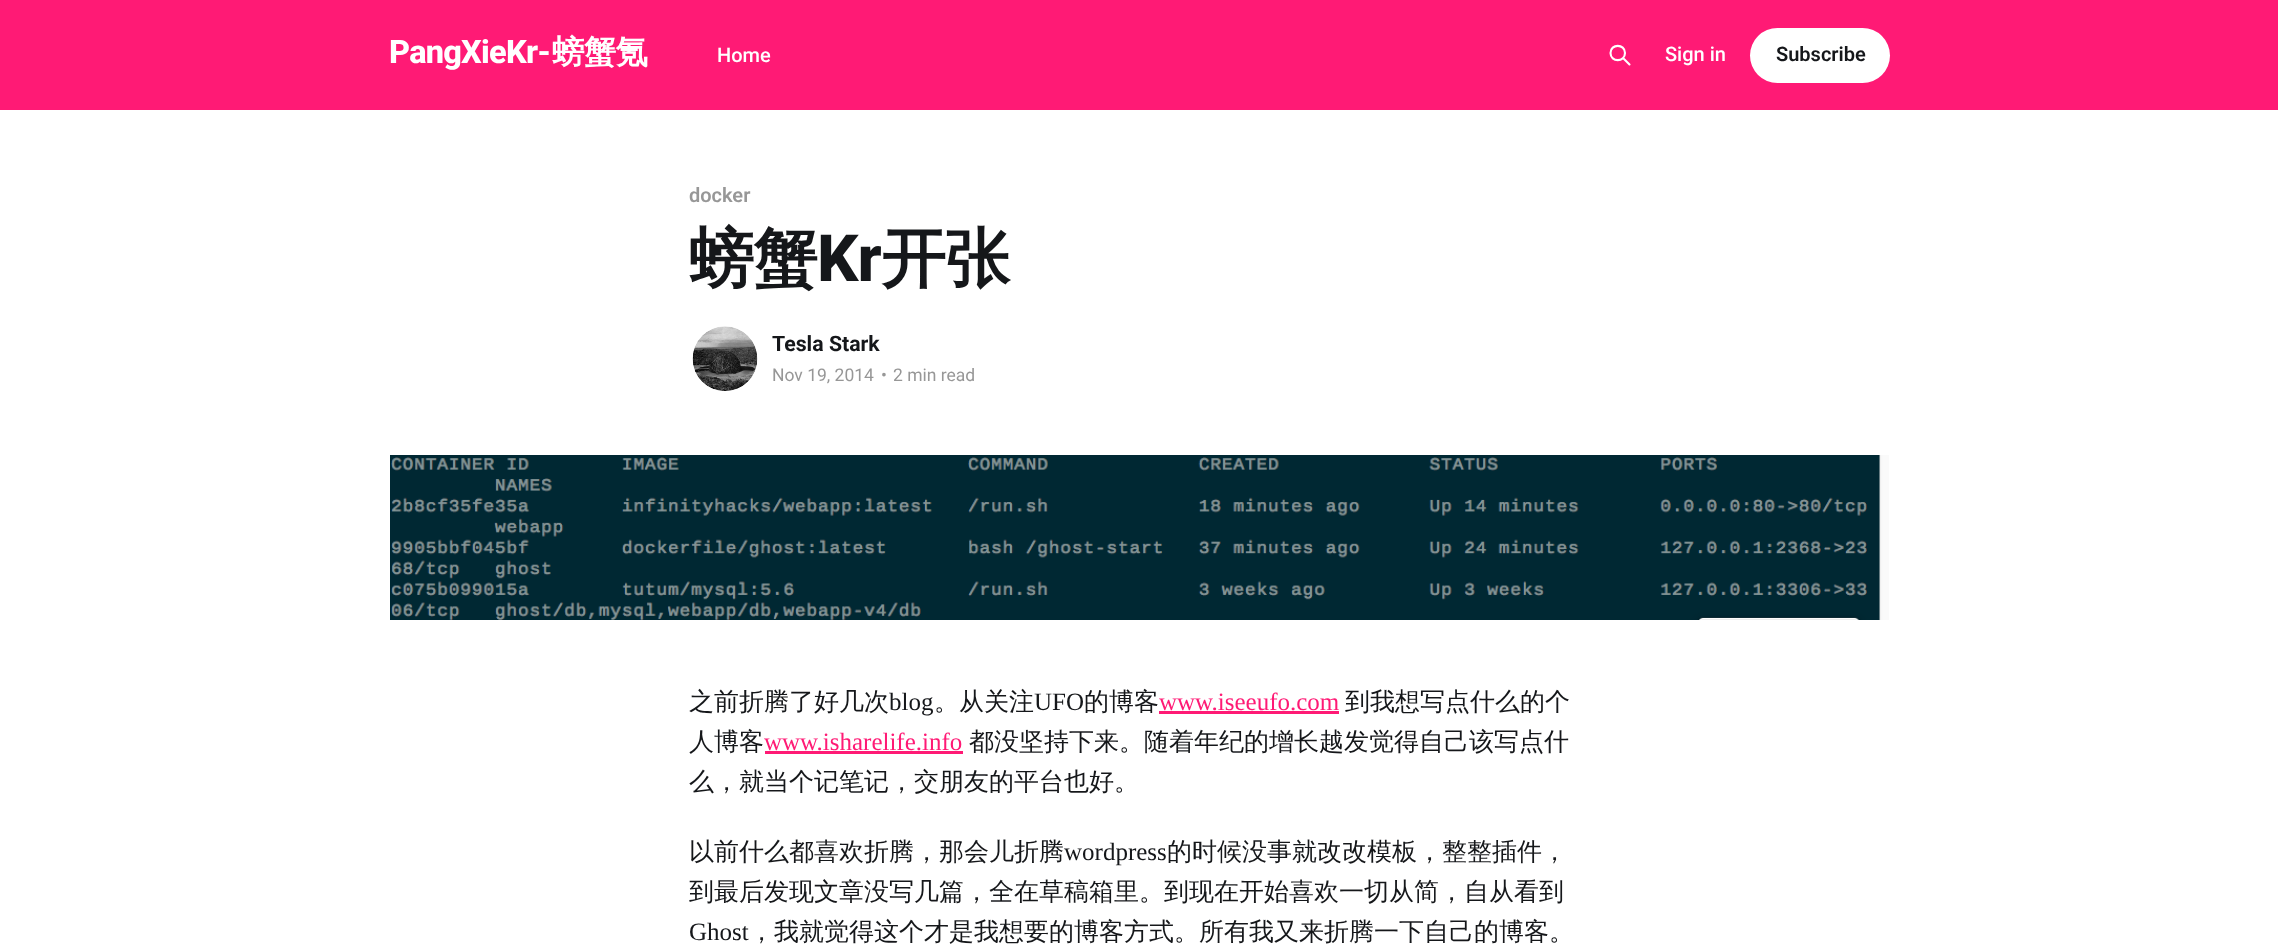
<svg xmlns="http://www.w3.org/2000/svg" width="2278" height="947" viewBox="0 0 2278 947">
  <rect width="100%" height="100%" fill="rgb(255,255,255)"/>
  <rect x="0" y="0" width="2278" height="110" fill="rgb(255,26,117)"/>
  <text x="389" y="63" font-family="Roboto" font-size="32.5" font-weight="800" letter-spacing="-0.75" fill="rgb(255,255,255)">PangXieKr-</text>
  <text x="552" y="63" font-family="WenQuanYi Zen Hei" font-size="32.5" font-weight="bold" letter-spacing="-0.75" fill="rgb(255,255,255)">螃蟹氪</text>
  <text x="717" y="62" font-family="Roboto" font-size="20" font-weight="500" fill="rgb(255,255,255)">Home</text>
  <path d="M1629.5 64.5L1623 58M1625 53C1625 62.5 1610.5 62.5 1610.5 53C1610.5 43.5 1625 43.5 1625 53Z" fill="none" stroke="rgb(255,255,255)" stroke-width="2.1" stroke-linecap="round" stroke-linejoin="round"/>
  <text x="1665" y="61" font-family="Roboto" font-size="20" font-weight="500" fill="rgb(255,255,255)">Sign in</text>
  <rect x="1750" y="28" width="140" height="55" rx="27.5" fill="rgb(255,255,255)"/>
  <text x="1776" y="61" font-family="Roboto" font-size="20" font-weight="600" fill="rgb(21,23,26)">Subscribe</text>
  <text x="689" y="202" font-family="Roboto" font-size="20" font-weight="600" fill="rgb(151,151,151)">docker</text>
  <text x="689" y="281" font-family="WenQuanYi Zen Hei" font-size="65" font-weight="bold" letter-spacing="-1" fill="rgb(21,23,26)">螃蟹</text>
  <text x="817" y="281" font-family="Roboto" font-size="65" font-weight="800" letter-spacing="-1" fill="rgb(21,23,26)">Kr</text>
  <text x="881" y="281" font-family="WenQuanYi Zen Hei" font-size="65" font-weight="bold" letter-spacing="-1" fill="rgb(21,23,26)">开张</text>
  <image x="692" y="326" width="66" height="65" href="pic1.png"/>
  <text x="772" y="351" font-family="Roboto" font-size="21.25" font-weight="bold" fill="rgb(21,23,26)">Tesla Stark</text>
  <g font-family="Roboto" font-size="17.5" fill="rgb(151,151,151)">
    <text x="772" y="381">Nov 19, 2014</text>
    <text x="881" y="381">•</text>
    <text x="893" y="381">2 min read</text>
  </g>
  <image x="390" y="455" width="1499" height="165" href="pic2.png"/>
  <text x="689" y="710" font-family="WenQuanYi Zen Hei" font-size="25" font-weight="500" fill="rgb(21,23,26)">之前折腾了好几次</text>
  <text x="889" y="710" font-family="Liberation Serif" font-size="25" fill="rgb(21,23,26)">blog</text>
  <text x="934" y="710" font-family="WenQuanYi Zen Hei" font-size="25" font-weight="500" fill="rgb(21,23,26)">。从关注</text>
  <text x="1034" y="710" font-family="Liberation Serif" font-size="25" fill="rgb(21,23,26)">UFO</text>
  <text x="1084" y="710" font-family="WenQuanYi Zen Hei" font-size="25" font-weight="500" fill="rgb(21,23,26)">的博客</text>
  <text x="1159" y="710" font-family="Liberation Serif" font-size="25" fill="rgb(255,26,117)">www.iseeufo.com</text>
  <rect x="1159" y="711" width="180" height="3" fill="rgb(255,26,117)"/>
  <g font-family="WenQuanYi Zen Hei" font-size="25" font-weight="500" fill="rgb(21,23,26)">
    <text x="1345" y="710">到我想写点什么的个</text>
    <text x="689" y="750">人博客</text>
  </g>
  <text x="764" y="750" font-family="Liberation Serif" font-size="25" fill="rgb(255,26,117)">www.isharelife.info</text>
  <rect x="765" y="751" width="198" height="3" fill="rgb(255,26,117)"/>
  <g font-family="WenQuanYi Zen Hei" font-size="25" font-weight="500" fill="rgb(21,23,26)">
    <text x="969" y="750">都没坚持下来。随着年纪的增长越发觉得自己该写点什</text>
    <text x="689" y="790">么，就当个记笔记，交朋友的平台也好。</text>
    <text x="689" y="860">以前什么都喜欢折腾，那会儿折腾</text>
  </g>
  <text x="1064" y="860" font-family="Liberation Serif" font-size="25" fill="rgb(21,23,26)">wordpress</text>
  <g font-family="WenQuanYi Zen Hei" font-size="25" font-weight="500" fill="rgb(21,23,26)">
    <text x="1167" y="860">的时候没事就改改模板，整整插件，</text>
    <text x="689" y="900">到最后发现文章没写几篇，全在草稿箱里。到现在开始喜欢一切从简，自从看到</text>
  </g>
  <text x="689" y="940" font-family="Liberation Serif" font-size="25" fill="rgb(21,23,26)">Ghost</text>
  <text x="749" y="940" font-family="WenQuanYi Zen Hei" font-size="25" font-weight="500" fill="rgb(21,23,26)">，我就觉得这个才是我想要的博客方式。所有我又来折腾一下自己的博客。</text>
</svg>
